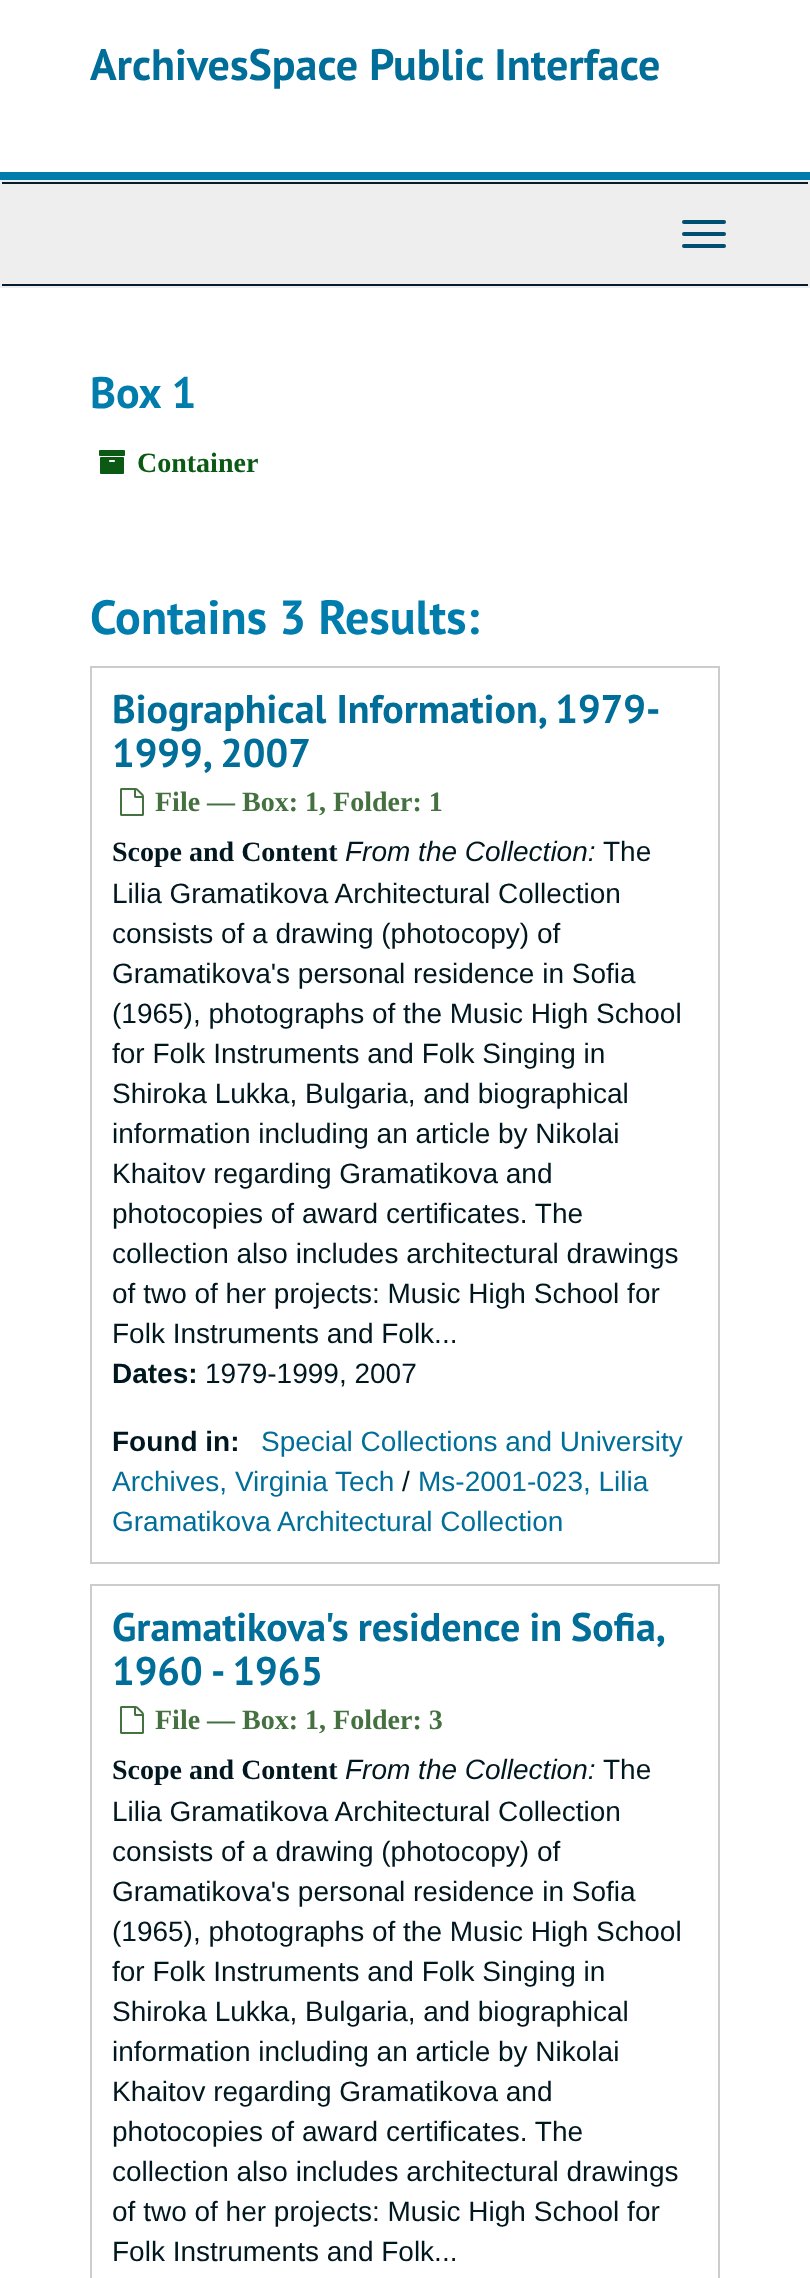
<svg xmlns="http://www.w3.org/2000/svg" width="810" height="2278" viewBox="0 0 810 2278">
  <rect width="100%" height="100%" fill="rgb(255,255,255)"/>
  <rect x="0" y="172" width="810" height="8" fill="rgb(0,124,173)"/>
  <text x="90" y="80" font-family="PT Sans" font-size="44" font-weight="bold" fill="rgb(0,110,153)">ArchivesSpace Public Interface</text>
  <rect x="0" y="180" width="810" height="108" fill="rgb(238,238,238)"/>
  <rect x="2" y="182" width="806" height="2" fill="rgb(4,28,47)"/>
  <rect x="2" y="284" width="806" height="2" fill="rgb(4,28,47)"/>
  <rect x="682" y="220" width="44" height="4" rx="2" fill="rgb(0,79,111)"/>
  <rect x="682" y="232" width="44" height="4" rx="2" fill="rgb(0,79,111)"/>
  <rect x="682" y="244" width="44" height="4" rx="2" fill="rgb(0,79,111)"/>
  <text x="90" y="408" font-family="PT Sans" font-size="44" font-weight="bold" fill="rgb(0,124,173)">Box 1</text>
  <image x="99" y="450" width="26" height="24" href="pic1.png"/>
  <text x="137" y="472" font-family="Liberation Serif" font-size="28" font-weight="bold" fill="rgb(11,90,20)">Container</text>
  <text x="90" y="634" font-family="PT Sans" font-size="48" font-weight="bold" fill="rgb(0,124,173)">Contains 3 Results:</text>
  <rect x="91" y="667" width="628" height="896" fill="none" stroke="rgb(204,204,204)" stroke-width="2"/>
  <g font-family="PT Sans" font-size="40" font-weight="bold" fill="rgb(0,110,153)">
    <text>
      <tspan x="112" y="723">Biographical Information, 1979-</tspan>
      <tspan x="112" y="767">1999, 2007</tspan>
    </text>
  </g>
  <image x="120" y="788" width="24" height="28" href="pic2.png"/>
  <text x="155" y="811" font-family="Liberation Serif" font-size="28" font-weight="bold" fill="rgb(69,113,65)">File — Box: 1, Folder: 1</text>
  <text x="112" y="861" font-family="Liberation Serif" font-size="28" font-weight="bold" fill="rgb(0,23,31)">Scope and Content</text>
  <text x="345" y="861" font-family="Liberation Sans" font-size="28" font-style="italic" fill="rgb(0,23,31)">From the Collection:</text>
  <g font-family="Liberation Sans" font-size="28" fill="rgb(0,23,31)">
    <text x="603" y="861">The</text>
    <text>
      <tspan x="112" y="903">Lilia Gramatikova Architectural Collection</tspan>
      <tspan x="112" y="943">consists of a drawing (photocopy) of</tspan>
      <tspan x="112" y="983">Gramatikova's personal residence in Sofia</tspan>
      <tspan x="112" y="1023">(1965), photographs of the Music High School</tspan>
      <tspan x="112" y="1063">for Folk Instruments and Folk Singing in</tspan>
      <tspan x="112" y="1103">Shiroka Lukka, Bulgaria, and biographical</tspan>
      <tspan x="112" y="1143">information including an article by Nikolai</tspan>
      <tspan x="112" y="1183">Khaitov regarding Gramatikova and</tspan>
      <tspan x="112" y="1223">photocopies of award certificates. The</tspan>
      <tspan x="112" y="1263">collection also includes architectural drawings</tspan>
      <tspan x="112" y="1303">of two of her projects: Music High School for</tspan>
      <tspan x="112" y="1343">Folk Instruments and Folk...</tspan>
    </text>
  </g>
  <text x="112" y="1383" font-family="Liberation Sans" font-size="28" font-weight="bold" fill="rgb(0,23,31)">Dates:</text>
  <text x="205" y="1383" font-family="Liberation Sans" font-size="28" fill="rgb(0,23,31)">1979-1999, 2007</text>
  <text x="112" y="1451" font-family="Liberation Sans" font-size="28" font-weight="bold" fill="rgb(0,23,31)">Found in:</text>
  <g font-family="Liberation Sans" font-size="28" fill="rgb(0,110,153)">
    <text x="261" y="1451">Special Collections and University</text>
    <text x="112" y="1491">Archives, Virginia Tech</text>
  </g>
  <text x="402" y="1491" font-family="Liberation Sans" font-size="28" fill="rgb(0,23,31)">/</text>
  <g font-family="Liberation Sans" font-size="28" fill="rgb(0,110,153)">
    <text x="418" y="1491">Ms-2001-023, Lilia</text>
    <text x="112" y="1531">Gramatikova Architectural Collection</text>
  </g>
  <rect x="91" y="1585" width="628" height="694" fill="none" stroke="rgb(204,204,204)" stroke-width="2"/>
  <g font-family="PT Sans" font-size="40" font-weight="bold" fill="rgb(0,110,153)">
    <text>
      <tspan x="112" y="1641" word-spacing="-1">Gramatikova's residence in Sofia,</tspan>
      <tspan x="112" y="1685">1960 - 1965</tspan>
    </text>
  </g>
  <image x="120" y="1706" width="24" height="28" href="pic2.png"/>
  <text x="155" y="1729" font-family="Liberation Serif" font-size="28" font-weight="bold" fill="rgb(69,113,65)">File — Box: 1, Folder: 3</text>
  <text x="112" y="1779" font-family="Liberation Serif" font-size="28" font-weight="bold" fill="rgb(0,23,31)">Scope and Content</text>
  <text x="345" y="1779" font-family="Liberation Sans" font-size="28" font-style="italic" fill="rgb(0,23,31)">From the Collection:</text>
  <g font-family="Liberation Sans" font-size="28" fill="rgb(0,23,31)">
    <text x="603" y="1779">The</text>
    <text>
      <tspan x="112" y="1821">Lilia Gramatikova Architectural Collection</tspan>
      <tspan x="112" y="1861">consists of a drawing (photocopy) of</tspan>
      <tspan x="112" y="1901">Gramatikova's personal residence in Sofia</tspan>
      <tspan x="112" y="1941">(1965), photographs of the Music High School</tspan>
      <tspan x="112" y="1981">for Folk Instruments and Folk Singing in</tspan>
      <tspan x="112" y="2021">Shiroka Lukka, Bulgaria, and biographical</tspan>
      <tspan x="112" y="2061">information including an article by Nikolai</tspan>
      <tspan x="112" y="2101">Khaitov regarding Gramatikova and</tspan>
      <tspan x="112" y="2141">photocopies of award certificates. The</tspan>
      <tspan x="112" y="2181">collection also includes architectural drawings</tspan>
      <tspan x="112" y="2221">of two of her projects: Music High School for</tspan>
      <tspan x="112" y="2261">Folk Instruments and Folk...</tspan>
    </text>
  </g>
</svg>
